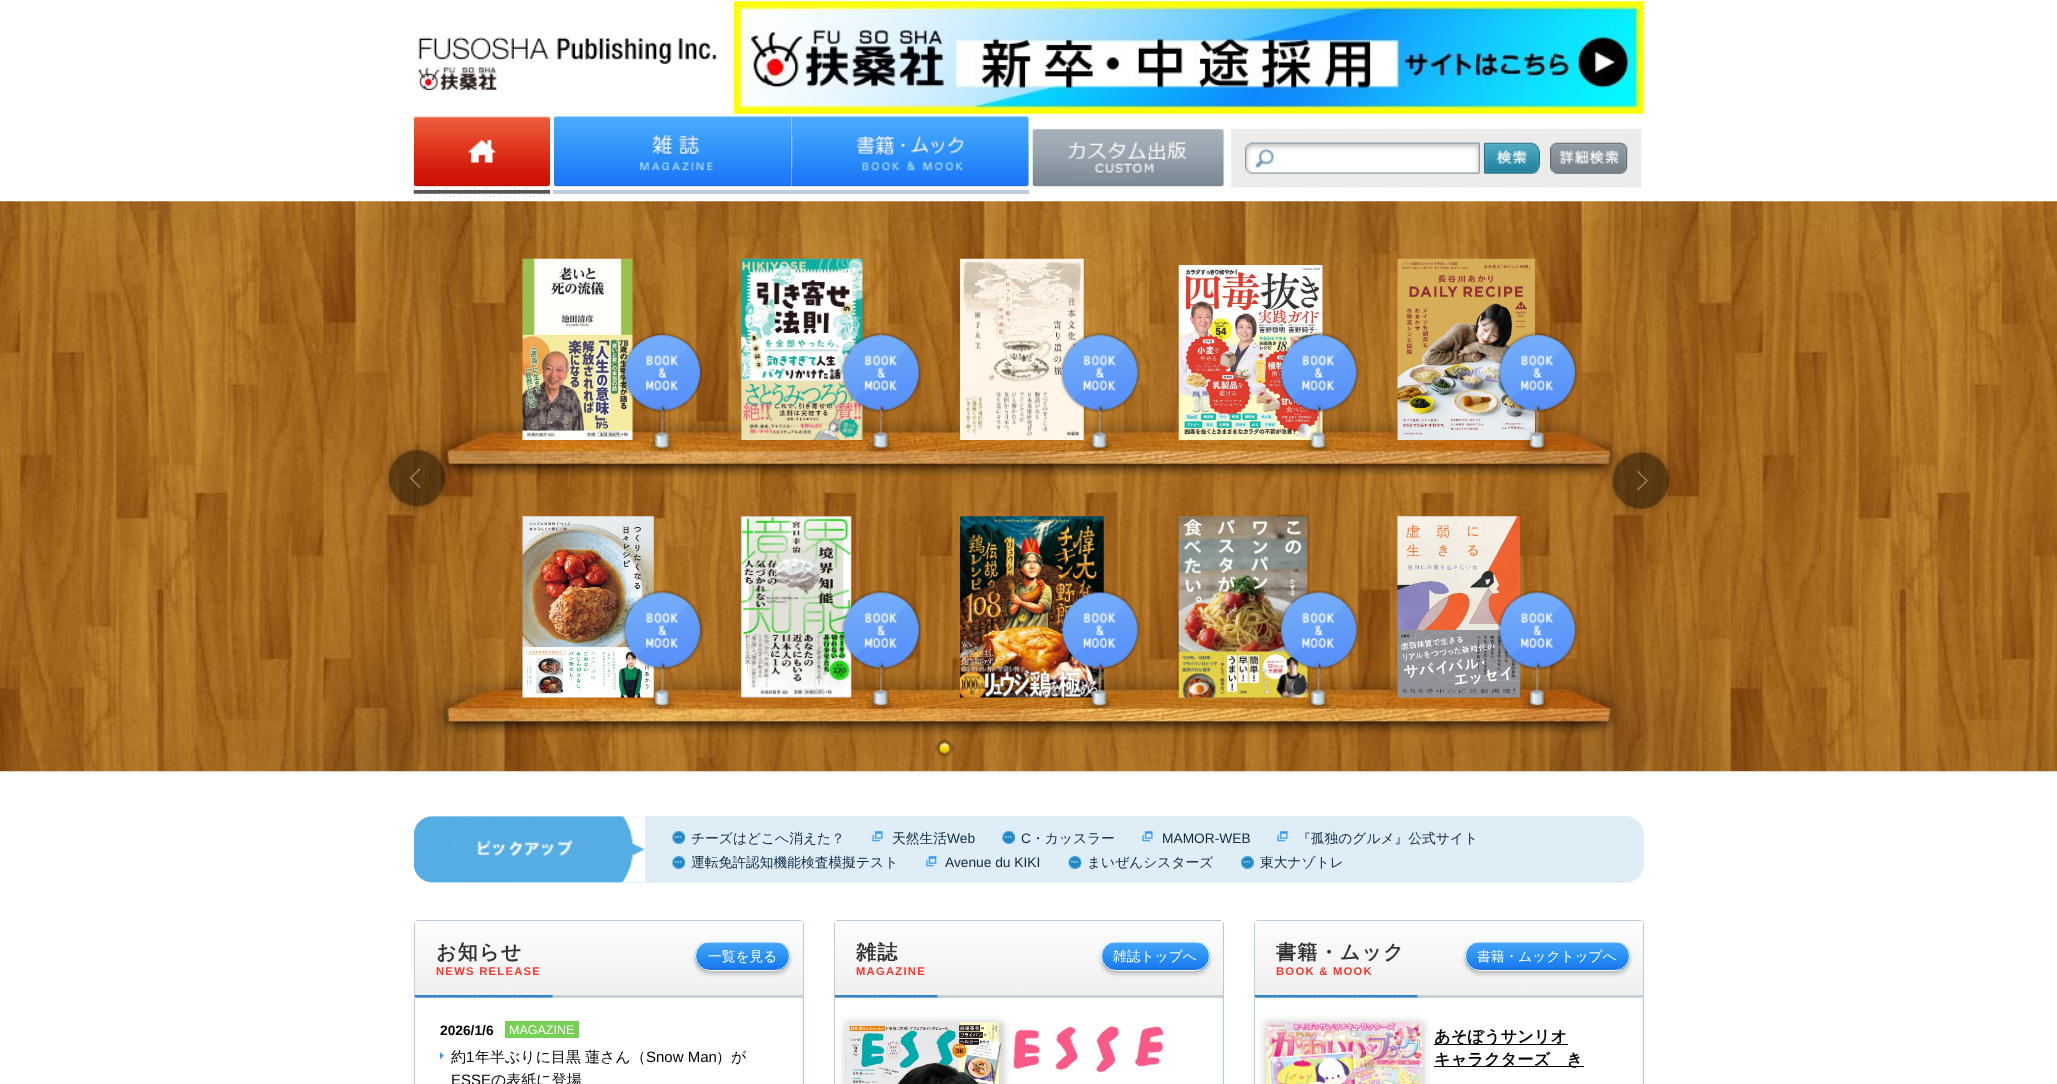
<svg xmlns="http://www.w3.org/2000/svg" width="2057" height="1084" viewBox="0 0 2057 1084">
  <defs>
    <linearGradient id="g1" gradientUnits="userSpaceOnUse" x1="415" y1="921" x2="415" y2="995"><stop offset="0" stop-color="rgb(253,253,253)"/><stop offset="1" stop-color="rgb(240,240,240)"/></linearGradient>
    <linearGradient id="g2" gradientUnits="userSpaceOnUse" x1="835" y1="921" x2="835" y2="995"><stop offset="0" stop-color="rgb(253,253,253)"/><stop offset="1" stop-color="rgb(240,240,240)"/></linearGradient>
    <linearGradient id="g3" gradientUnits="userSpaceOnUse" x1="1255" y1="921" x2="1255" y2="995"><stop offset="0" stop-color="rgb(253,253,253)"/><stop offset="1" stop-color="rgb(240,240,240)"/></linearGradient>
  </defs>
  <rect width="100%" height="100%" fill="rgb(255,255,255)"/>
  <image x="418" y="37" width="299" height="53" href="pic1.png"/>
  <image x="733" y="1" width="911" height="113" href="pic2.png"/>
  <image x="413" y="190" width="137" height="4" href="pic3.png"/>
  <image x="413" y="116" width="137" height="71" href="pic4.png"/>
  <rect x="553" y="190" width="476" height="4" fill="rgb(191,206,221)"/>
  <image x="553" y="116" width="239" height="71" href="pic5.png"/>
  <image x="791" y="116" width="238" height="71" href="pic6.png"/>
  <image x="1032" y="128" width="192" height="59" href="pic7.png"/>
  <image x="1231" y="128" width="411" height="60" href="pic8.png"/>
  <image x="1245" y="142" width="235" height="32" href="pic9.png"/>
  <image x="1483" y="142" width="57" height="32" href="pic10.png"/>
  <image x="1550" y="142" width="78" height="32" href="pic11.png"/>
  <image x="0" y="201" width="2057" height="571" href="pic12.png"/>
  <image x="382" y="444" width="69" height="69" href="pic13.png"/>
  <image x="522" y="258" width="111" height="182" href="pic14.png"/>
  <image x="622" y="332" width="81" height="120" href="pic15.png"/>
  <image x="741" y="258" width="122" height="182" href="pic16.png"/>
  <image x="841" y="332" width="81" height="120" href="pic17.png"/>
  <image x="960" y="258" width="124" height="182" href="pic18.png"/>
  <image x="1060" y="332" width="80" height="120" href="pic19.png"/>
  <image x="1178" y="265" width="145" height="175" href="pic20.png"/>
  <image x="1279" y="332" width="80" height="120" href="pic21.png"/>
  <image x="1397" y="258" width="138" height="182" href="pic22.png"/>
  <image x="1497" y="332" width="81" height="120" href="pic23.png"/>
  <image x="522" y="516" width="132" height="182" href="pic24.png"/>
  <image x="622" y="590" width="81" height="119" href="pic25.png"/>
  <image x="741" y="516" width="111" height="182" href="pic26.png"/>
  <image x="841" y="590" width="81" height="119" href="pic27.png"/>
  <image x="960" y="516" width="144" height="182" href="pic28.png"/>
  <image x="1060" y="590" width="80" height="119" href="pic29.png"/>
  <image x="1178" y="516" width="130" height="182" href="pic30.png"/>
  <image x="1279" y="590" width="80" height="119" href="pic31.png"/>
  <image x="1397" y="516" width="123" height="182" href="pic32.png"/>
  <image x="1497" y="590" width="81" height="119" href="pic33.png"/>
  <image x="1606" y="446" width="67" height="69" href="pic34.png"/>
  <image x="935" y="739" width="19" height="19" href="pic35.png"/>
  <rect x="414" y="816" width="1230" height="67" rx="19" fill="rgb(222,237,246)"/>
  <image x="413" y="816" width="232" height="67" href="pic36.png"/>
  <image x="672" y="831" width="13" height="13" href="pic37.png"/>
  <text x="691" y="843" font-family="WenQuanYi Zen Hei" font-size="13.75" font-weight="500" fill="rgb(12,45,66)">チーズはどこへ消えた？</text>
  <image x="872" y="831" width="11" height="11" href="pic38.png"/>
  <text x="892" y="843" font-family="WenQuanYi Zen Hei" font-size="13.75" font-weight="500" fill="rgb(12,45,66)">天然生活</text>
  <text x="947" y="843" font-family="Liberation Sans" font-size="13.75" fill="rgb(12,45,66)">Web</text>
  <image x="1002" y="831" width="13" height="13" href="pic39.png"/>
  <text x="1021" y="843" font-family="Liberation Sans" font-size="13.75" fill="rgb(12,45,66)">C</text>
  <text x="1031" y="843" font-family="WenQuanYi Zen Hei" font-size="13.75" font-weight="500" fill="rgb(12,45,66)">・カッスラー</text>
  <image x="1142" y="831" width="11" height="11" href="pic38.png"/>
  <text x="1162" y="843" font-family="Liberation Sans" font-size="13.75" fill="rgb(12,45,66)">MAMOR-WEB</text>
  <image x="1277" y="831" width="11" height="11" href="pic38.png"/>
  <text x="1297" y="843" font-family="WenQuanYi Zen Hei" font-size="13.75" font-weight="500" fill="rgb(12,45,66)">『孤独のグルメ』公式サイト</text>
  <image x="672" y="856" width="13" height="13" href="pic37.png"/>
  <text x="691" y="867" font-family="WenQuanYi Zen Hei" font-size="13.75" font-weight="500" fill="rgb(12,45,66)">運転免許認知機能検査模擬テスト</text>
  <image x="926" y="856" width="11" height="11" href="pic40.png"/>
  <text x="945" y="867" font-family="Liberation Sans" font-size="13.75" fill="rgb(12,45,66)">Avenue du KIKI</text>
  <image x="1068" y="856" width="14" height="13" href="pic41.png"/>
  <text x="1087" y="867" font-family="WenQuanYi Zen Hei" font-size="13.75" font-weight="500" fill="rgb(12,45,66)">まいぜんシスターズ</text>
  <image x="1241" y="856" width="13" height="13" href="pic42.png"/>
  <text x="1260" y="867" font-family="WenQuanYi Zen Hei" font-size="13.75" font-weight="500" fill="rgb(12,45,66)">東大ナゾトレ</text>
  <rect x="414.5" y="920.5" width="389" height="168" rx="3.5" fill="none" stroke="rgb(184,202,218)"/>
  <rect x="415" y="921" width="388" height="74" fill="url(#g1)"/>
  <rect x="415" y="995" width="388" height="3" fill="rgb(200,207,213)"/>
  <image x="415" y="995" width="138" height="3" href="pic43.png"/>
  <text x="436" y="959" font-family="WenQuanYi Zen Hei" font-size="20" font-weight="bold" letter-spacing="1.25" fill="rgb(51,51,51)">お知らせ</text>
  <text x="436" y="975" font-family="Liberation Sans" font-size="11.25" font-weight="bold" letter-spacing="1.25" fill="rgb(255,52,42)">NEWS RELEASE</text>
  <rect x="695" y="944" width="95" height="30" rx="15" fill="rgba(0,0,0,0.24)" filter="blur(2px)"/>
  <image x="695" y="942" width="95" height="30" href="pic44.png"/>
  <rect x="695.5" y="941.5" width="94" height="29" rx="14.5" fill="none" stroke="rgb(253,253,253)"/>
  <text x="708" y="961" font-family="WenQuanYi Zen Hei" font-size="13.75" font-weight="500" fill="rgb(255,255,255)">一覧を見る</text>
  <text x="440" y="1035" font-family="Liberation Sans" font-size="13.75" font-weight="bold" fill="rgb(0,0,0)">2026/1/6</text>
  <rect x="505" y="1021" width="74" height="17" fill="rgb(118,208,83)"/>
  <text x="509" y="1034" font-family="Liberation Sans" font-size="12.5" fill="rgb(255,255,255)">MAGAZINE</text>
  <image x="440" y="1052" width="4" height="7" href="pic45.png"/>
  <text x="451" y="1062" font-family="WenQuanYi Zen Hei" font-size="15" font-weight="500" fill="rgb(0,0,0)">約</text>
  <text x="466" y="1062" font-family="Liberation Sans" font-size="15" fill="rgb(0,0,0)">1</text>
  <g font-family="WenQuanYi Zen Hei" font-size="15" font-weight="500" fill="rgb(0,0,0)">
    <text x="475" y="1062">年半ぶりに目黒</text>
    <text x="585" y="1062">蓮さん（</text>
  </g>
  <text x="646" y="1062" font-family="Liberation Sans" font-size="15" fill="rgb(0,0,0)">Snow Man</text>
  <text x="716" y="1062" font-family="WenQuanYi Zen Hei" font-size="15" font-weight="500" fill="rgb(0,0,0)">）が</text>
  <text x="451" y="1085" font-family="Liberation Sans" font-size="15" fill="rgb(0,0,0)">ESSE</text>
  <text x="491" y="1085" font-family="WenQuanYi Zen Hei" font-size="15" font-weight="500" fill="rgb(0,0,0)">の表紙に登場</text>
  <rect x="834.5" y="920.5" width="389" height="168" rx="3.5" fill="none" stroke="rgb(184,202,218)"/>
  <rect x="835" y="921" width="388" height="74" fill="url(#g2)"/>
  <rect x="835" y="995" width="388" height="3" fill="rgb(200,207,213)"/>
  <image x="835" y="995" width="103" height="3" href="pic46.png"/>
  <text x="856" y="959" font-family="WenQuanYi Zen Hei" font-size="20" font-weight="bold" letter-spacing="1.25" fill="rgb(51,51,51)">雑誌</text>
  <text x="856" y="975" font-family="Liberation Sans" font-size="11.25" font-weight="bold" letter-spacing="1.25" fill="rgb(255,52,42)">MAGAZINE</text>
  <rect x="1101" y="944" width="109" height="30" rx="15" fill="rgba(0,0,0,0.24)" filter="blur(2px)"/>
  <image x="1101" y="942" width="109" height="30" href="pic47.png"/>
  <rect x="1101.5" y="941.5" width="108" height="29" rx="14.5" fill="none" stroke="rgb(253,253,253)"/>
  <text x="1113" y="961" font-family="WenQuanYi Zen Hei" font-size="13.75" font-weight="500" fill="rgb(255,255,255)">雑誌トップへ</text>
  <rect x="846" y="1023" width="157" height="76" fill="rgba(0,0,0,0.24)" filter="blur(5px)"/>
  <image x="846" y="1022" width="157" height="62" href="pic48.png"/>
  <image x="1013" y="1026" width="151" height="47" href="pic49.png"/>
  <rect x="1254.5" y="920.5" width="389" height="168" rx="3.5" fill="none" stroke="rgb(184,202,218)"/>
  <rect x="1255" y="921" width="388" height="74" fill="url(#g3)"/>
  <rect x="1255" y="995" width="388" height="3" fill="rgb(200,207,213)"/>
  <image x="1255" y="995" width="163" height="3" href="pic50.png"/>
  <text x="1276" y="959" font-family="WenQuanYi Zen Hei" font-size="20" font-weight="bold" letter-spacing="1.25" fill="rgb(51,51,51)">書籍・ムック</text>
  <text x="1276" y="975" font-family="Liberation Sans" font-size="11.25" font-weight="bold" letter-spacing="1.25" fill="rgb(255,52,42)">BOOK &amp; MOOK</text>
  <rect x="1465" y="944" width="165" height="30" rx="15" fill="rgba(0,0,0,0.24)" filter="blur(2px)"/>
  <image x="1465" y="942" width="165" height="30" href="pic51.png"/>
  <rect x="1465.5" y="941.5" width="164" height="29" rx="14.5" fill="none" stroke="rgb(253,253,253)"/>
  <text x="1477" y="961" font-family="WenQuanYi Zen Hei" font-size="13.75" font-weight="500" fill="rgb(255,255,255)">書籍・ムックトップへ</text>
  <rect x="1266" y="1023" width="157" height="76" fill="rgba(0,0,0,0.24)" filter="blur(5px)"/>
  <image x="1266" y="1022" width="157" height="62" href="pic52.png"/>
  <rect x="1434" y="1044" width="134" height="1" fill="rgb(0,0,0)"/>
  <text x="1434" y="1042" font-family="WenQuanYi Zen Hei" font-size="16.25" font-weight="bold" fill="rgb(0,0,0)">あそぼうサンリオ</text>
  <rect x="1434" y="1066" width="150" height="1" fill="rgb(0,0,0)"/>
  <text x="1434" y="1065" font-family="WenQuanYi Zen Hei" font-size="16.25" font-weight="bold" fill="rgb(0,0,0)">キャラクターズ　き</text>
</svg>
